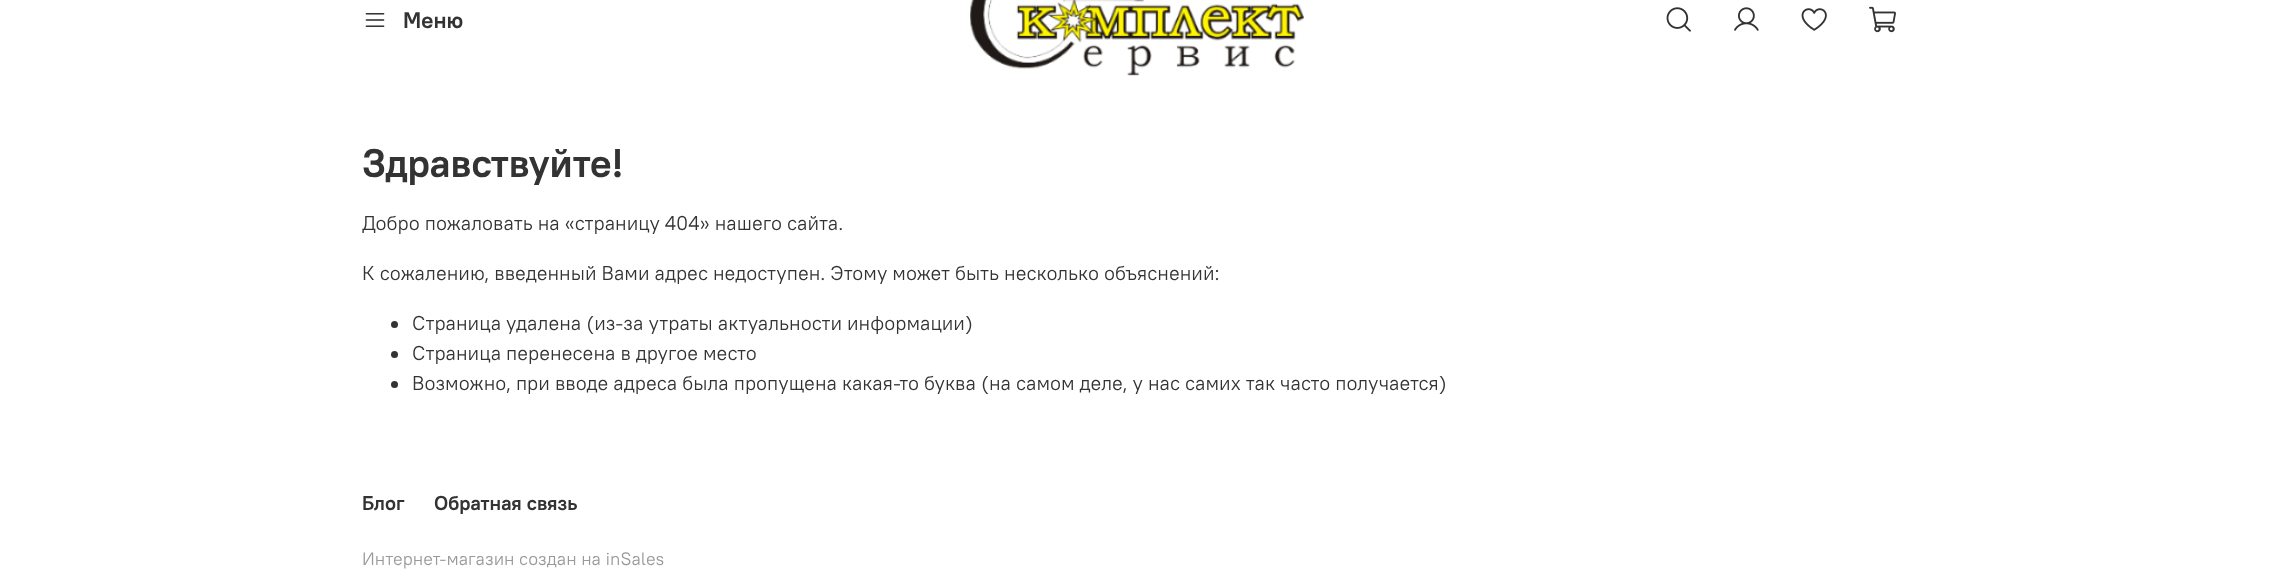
<svg xmlns="http://www.w3.org/2000/svg" width="2273" height="575" viewBox="0 0 2273 575">
  <rect width="100%" height="100%" fill="rgb(255,255,255)"/>
  <image x="365" y="13" width="20" height="14" href="pic1.png"/>
  <text x="403" y="28" font-family="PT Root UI" font-size="22.5" font-weight="bold" fill="rgb(51,51,51)">Меню</text>
  <image x="970" y="0" width="334" height="76" href="pic2.png"/>
  <image x="1666" y="7" width="25" height="25" href="pic3.png"/>
  <image x="1734" y="7" width="25" height="24" href="pic4.png"/>
  <image x="1801" y="8" width="26" height="23" href="pic5.png"/>
  <image x="1869" y="6" width="27" height="27" href="pic6.png"/>
  <text x="362" y="177" font-family="PT Root UI" font-size="40" font-weight="bold" fill="rgb(51,51,51)">Здравствуйте!</text>
  <g font-family="PT Root UI" font-size="20" fill="rgb(51,51,51)">
    <text x="362" y="230">Добро пожаловать на «страницу 404» нашего сайта.</text>
    <text x="362" y="280">К сожалению, введенный Вами адрес недоступен. Этому может быть несколько объяснений:</text>
  </g>
  <circle cx="394.5" cy="324.5" r="3.5" fill="rgb(51,51,51)"/>
  <text x="412" y="330" font-family="PT Root UI" font-size="20" fill="rgb(51,51,51)">Страница удалена (из-за утраты актуальности информации)</text>
  <circle cx="394.5" cy="354.5" r="3.5" fill="rgb(51,51,51)"/>
  <text x="412" y="360" font-family="PT Root UI" font-size="20" fill="rgb(51,51,51)">Страница перенесена в другое место</text>
  <circle cx="394.5" cy="384.5" r="3.5" fill="rgb(51,51,51)"/>
  <text x="412" y="390" font-family="PT Root UI" font-size="20" fill="rgb(51,51,51)">Возможно, при вводе адреса была пропущена какая-то буква (на самом деле, у нас самих так часто получается)</text>
  <g font-family="PT Root UI" font-size="20" font-weight="bold" fill="rgb(51,51,51)">
    <text x="362" y="510">Блог</text>
    <text x="434" y="510">Обратная связь</text>
  </g>
  <text x="362" y="565" font-family="PT Root UI" font-size="18" fill="rgb(153,153,153)">Интернет-магазин создан на inSales</text>
</svg>
